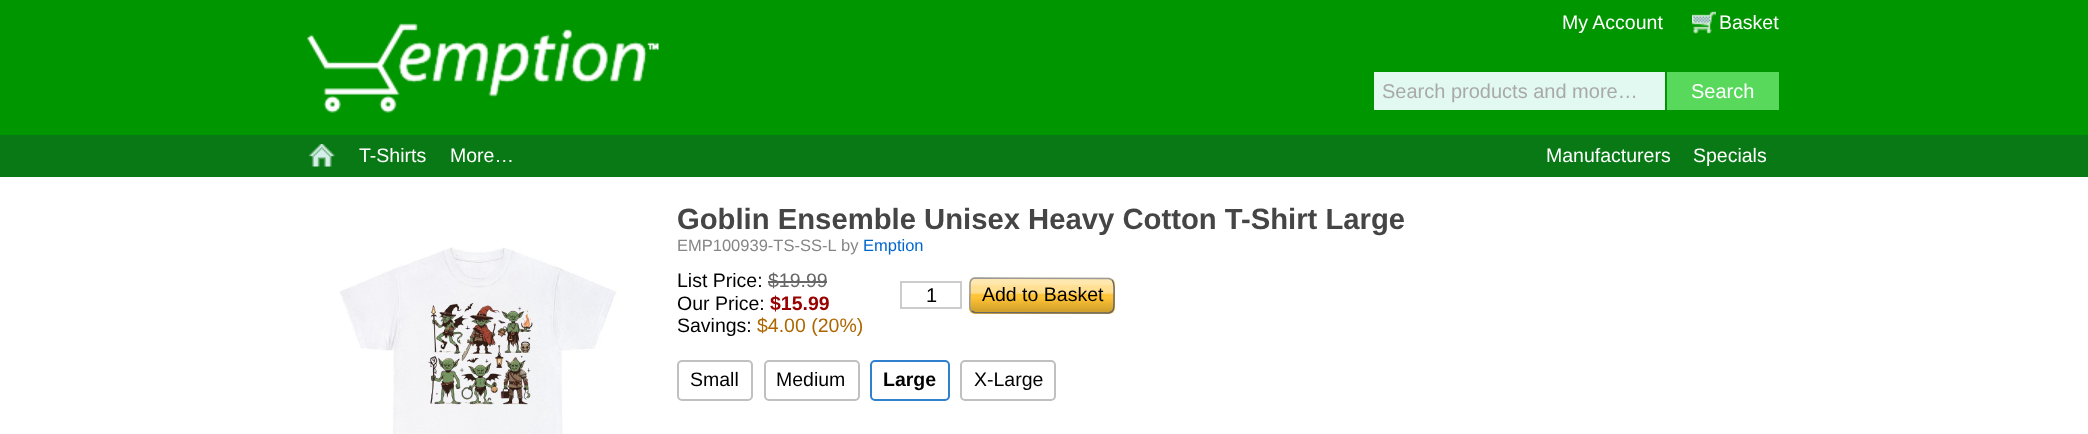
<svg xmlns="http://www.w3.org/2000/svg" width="2088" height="434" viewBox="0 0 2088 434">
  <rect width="100%" height="100%" fill="rgb(255,255,255)"/>
  <rect x="0" y="0" width="2088" height="135" fill="rgb(0,150,0)"/>
  <text x="1562" y="29" font-family="Liberation Sans" font-size="19.5" fill="rgb(255,255,255)">My Account</text>
  <image x="1692" y="11" width="24" height="23" href="pic1.png"/>
  <text x="1719" y="29" font-family="Liberation Sans" font-size="19.5" fill="rgb(255,255,255)">Basket</text>
  <rect x="0" y="135" width="2088" height="42" fill="rgb(8,121,21)"/>
  <image x="309" y="144" width="26" height="23" href="pic2.png"/>
  <g font-family="Liberation Sans" font-size="19.5" fill="rgb(255,255,255)">
    <text x="359" y="162">T-Shirts</text>
    <text x="450" y="162">More…</text>
    <text x="1546" y="162">Manufacturers</text>
    <text x="1693" y="162">Specials</text>
  </g>
  <image x="307" y="23" width="352" height="90" href="pic3.png"/>
  <rect x="1374" y="72" width="291" height="38" fill="rgb(225,249,240)"/>
  <text x="1382" y="98" font-family="Liberation Sans" font-size="20" fill="rgb(169,169,169)">Search products and more…</text>
  <rect x="1667" y="72" width="112" height="38" fill="rgb(88,217,92)"/>
  <text x="1691" y="98" font-family="Liberation Sans" font-size="20" fill="rgb(255,255,255)">Search</text>
  <image x="339" y="247" width="278" height="187" href="pic4.png"/>
  <text x="677" y="229" font-family="Liberation Sans" font-size="29.25" font-weight="bold" fill="rgb(69,69,69)">Goblin Ensemble Unisex Heavy Cotton T-Shirt Large</text>
  <g font-family="Liberation Sans" font-size="16.5" fill="rgb(134,134,134)">
    <text x="677" y="251">EMP100939-TS-SS-L</text>
    <text x="841" y="251">by</text>
  </g>
  <text x="863" y="251" font-family="Liberation Sans" font-size="16.5" fill="rgb(0,102,204)">Emption</text>
  <text x="677" y="287" font-family="Liberation Sans" font-size="19.5" fill="rgb(0,0,0)">List Price:</text>
  <text x="768" y="287" font-family="Liberation Sans" font-size="19.5" fill="rgb(103,103,103)">$19.99</text>
  <rect x="768" y="281" width="59" height="2" fill="rgb(103,103,103)"/>
  <text x="677" y="310" font-family="Liberation Sans" font-size="19.5" fill="rgb(0,0,0)">Our Price:</text>
  <text x="770" y="310" font-family="Liberation Sans" font-size="19.5" font-weight="bold" fill="rgb(153,0,0)">$15.99</text>
  <text x="677" y="332" font-family="Liberation Sans" font-size="19.5" fill="rgb(0,0,0)">Savings:</text>
  <text x="757" y="332" font-family="Liberation Sans" font-size="19.5" fill="rgb(174,103,0)">$4.00 (20%)</text>
  <rect x="901" y="282" width="60" height="26" fill="none" stroke="rgb(204,204,204)" stroke-width="2"/>
  <text x="926" y="302" font-family="Liberation Sans" font-size="20" fill="rgb(0,0,0)">1</text>
  <rect x="969" y="278" width="146" height="36" rx="6" fill="rgb(255,194,49)"/>
  <image x="969" y="277" width="146" height="37" href="pic5.png"/>
  <path d="M1112 280C1115 283 1114 292 1114 295.5V303.5C1114 307.5 1114 312.5 1108.5 313L974.5 312.5L971.5 311" fill="none" stroke="rgb(103,103,103)" stroke-width="1.5"/>
  <path d="M971.5 311C968.5 308 970 299 970 295.5V287.5C970 283.5 969.5 278.5 975 278L1109 278.5L1112 280" fill="none" stroke="rgb(153,153,153)" stroke-width="1.5"/>
  <text x="982" y="301" font-family="Liberation Sans" font-size="19.5" fill="rgb(0,0,0)">Add to Basket</text>
  <rect x="678" y="361" width="74" height="39" rx="4" fill="none" stroke="rgb(192,192,192)" stroke-width="2"/>
  <text x="690" y="386" font-family="Liberation Sans" font-size="19.5" fill="rgb(0,0,0)">Small</text>
  <rect x="765" y="361" width="94" height="39" rx="4" fill="none" stroke="rgb(192,192,192)" stroke-width="2"/>
  <text x="776" y="386" font-family="Liberation Sans" font-size="19.5" fill="rgb(0,0,0)">Medium</text>
  <rect x="871" y="361" width="78" height="39" rx="4" fill="none" stroke="rgb(49,128,206)" stroke-width="2"/>
  <text x="883" y="386" font-family="Liberation Sans" font-size="19.5" font-weight="bold" fill="rgb(0,0,0)">Large</text>
  <rect x="961" y="361" width="94" height="39" rx="4" fill="none" stroke="rgb(192,192,192)" stroke-width="2"/>
  <text x="974" y="386" font-family="Liberation Sans" font-size="19.5" fill="rgb(0,0,0)">X-Large</text>
</svg>
